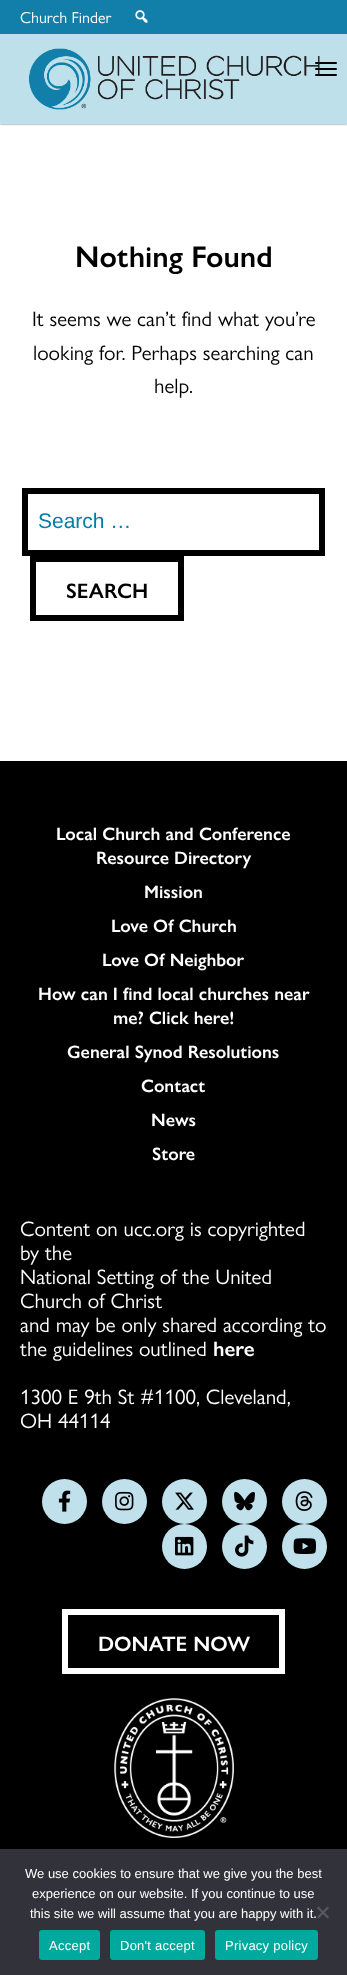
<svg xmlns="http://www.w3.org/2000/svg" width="347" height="1975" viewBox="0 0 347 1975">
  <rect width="100%" height="100%" fill="rgb(255,255,255)"/>
  <rect x="0" y="0" width="347" height="124" fill="rgba(0,0,0,0.6)" filter="blur(1px)"/>
  <rect x="0" y="34" width="347" height="90" fill="rgb(190,224,235)"/>
  <rect x="0" y="0" width="347" height="34" fill="rgb(17,127,169)"/>
  <text x="20" y="23" font-family="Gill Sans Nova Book" font-size="16" fill="rgb(255,255,255)">Church Finder</text>
  <image x="135" y="10" width="13" height="13" href="pic1.png"/>
  <rect x="315" y="62" width="22" height="2" rx="1" fill="rgb(0,0,0)"/>
  <rect x="315" y="68" width="22" height="2" rx="1" fill="rgb(0,0,0)"/>
  <rect x="315" y="74" width="22" height="2" rx="1" fill="rgb(0,0,0)"/>
  <image x="29" y="48" width="291" height="62" href="pic2.png"/>
  <text x="75" y="267" font-family="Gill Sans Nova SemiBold" font-size="30" font-weight="600" fill="rgb(0,0,0)">Nothing Found</text>
  <g font-family="Gill Sans Nova Book" font-size="21" fill="rgb(0,0,0)">
    <text x="32" y="326">It seems we can’t find what you’re</text>
    <text x="33" y="360">looking for. Perhaps searching can</text>
    <text x="154" y="393">help.</text>
  </g>
  <rect x="25" y="491" width="297" height="62" fill="none" stroke="rgb(0,0,0)" stroke-width="6"/>
  <text x="38" y="528" font-family="Liberation Sans" font-size="21" fill="rgb(0,126,169)">Search …</text>
  <rect x="33" y="559" width="148" height="59" fill="none" stroke="rgb(0,0,0)" stroke-width="6"/>
  <text x="66" y="598" font-family="Gill Sans Nova SemiBold" font-size="21" font-weight="600" fill="rgb(0,0,0)">SEARCH</text>
  <rect x="0" y="761" width="347" height="1088" fill="rgb(0,0,0)"/>
  <g font-family="Gill Sans Nova SemiBold" font-size="18" font-weight="600" fill="rgb(255,255,255)">
    <text x="56" y="840">Local Church and Conference</text>
    <text x="96" y="864">Resource Directory</text>
    <text x="144" y="898">Mission</text>
    <text x="111" y="932">Love Of Church</text>
    <text x="102" y="966">Love Of Neighbor</text>
    <text x="38" y="1000">How can I find local churches near</text>
    <text x="113" y="1024">me? Click here!</text>
    <text x="67" y="1058">General Synod Resolutions</text>
    <text x="141" y="1092">Contact</text>
    <text x="151" y="1126">News</text>
    <text x="152" y="1160">Store</text>
  </g>
  <g font-family="Gill Sans Nova Book" font-size="21" fill="rgb(255,255,255)">
    <text>
      <tspan x="20" y="1236">Content on ucc.org is copyrighted</tspan>
      <tspan x="20" y="1260">by the</tspan>
      <tspan x="20" y="1284">National Setting of the United</tspan>
      <tspan x="20" y="1308">Church of Christ</tspan>
      <tspan x="20" y="1332">and may be only shared according to</tspan>
      <tspan x="20" y="1356">the guidelines outlined</tspan>
    </text>
  </g>
  <text x="213" y="1356" font-family="Gill Sans Nova SemiBold" font-size="21" font-weight="600" fill="rgb(255,255,255)">here</text>
  <g font-family="Gill Sans Nova Book" font-size="21" fill="rgb(255,255,255)">
    <text>
      <tspan x="20" y="1404">1300 E 9th St #1100, Cleveland,</tspan>
      <tspan x="20" y="1428">OH 44114</tspan>
    </text>
  </g>
  <circle cx="64.5" cy="1501.5" r="22.5" fill="rgb(192,225,236)"/>
  <image x="58" y="1490" width="13" height="22" href="pic3.png"/>
  <circle cx="124.5" cy="1501.5" r="22.5" fill="rgb(192,225,236)"/>
  <image x="115" y="1491" width="19" height="20" href="pic4.png"/>
  <circle cx="184.5" cy="1501.5" r="22.5" fill="rgb(192,225,236)"/>
  <image x="175" y="1492" width="19" height="18" href="pic5.png"/>
  <circle cx="244.5" cy="1501.5" r="22.5" fill="rgb(192,225,236)"/>
  <image x="234" y="1491" width="21" height="20" href="pic6.png"/>
  <circle cx="304.5" cy="1501.5" r="22.5" fill="rgb(192,225,236)"/>
  <image x="295" y="1491" width="18" height="20" href="pic7.png"/>
  <circle cx="184.5" cy="1546.5" r="22.5" fill="rgb(192,225,236)"/>
  <image x="175" y="1536" width="19" height="20" href="pic8.png"/>
  <circle cx="244.5" cy="1546.5" r="22.5" fill="rgb(192,225,236)"/>
  <image x="235" y="1535" width="19" height="22" href="pic9.png"/>
  <circle cx="304.5" cy="1546.5" r="22.5" fill="rgb(192,225,236)"/>
  <image x="293" y="1538" width="23" height="16" href="pic10.png"/>
  <rect x="65" y="1612" width="217" height="59" fill="none" stroke="rgb(255,255,255)" stroke-width="6"/>
  <text x="98" y="1651" font-family="Gill Sans Nova SemiBold" font-size="21" font-weight="600" fill="rgb(255,255,255)">DONATE NOW</text>
  <image x="114" y="1698" width="120" height="140" href="pic11.png"/>
  <rect x="0" y="1849" width="347" height="126" fill="rgb(50,50,58)"/>
  <g font-family="Liberation Sans" font-size="13" fill="rgb(255,255,255)">
    <text x="25" y="1878">We use cookies to ensure that we give you the best</text>
    <text x="32" y="1898">experience on our website. If you continue to use</text>
    <text x="30" y="1918">this site we will assume that you are happy with it.</text>
  </g>
  <path d="M327.5 1906.5L329 1908L318.5 1918.5L317 1917Z" fill="rgb(89,89,93)"/>
  <path d="M317 1908L318.5 1906.5L329 1917L327.5 1918.5Z" fill="rgb(89,89,93)"/>
  <rect x="39" y="1930" width="61" height="30" rx="3" fill="rgb(0,169,157)"/>
  <text x="49" y="1950" font-family="Liberation Sans" font-size="13" letter-spacing="0.25" fill="rgb(255,255,255)">Accept</text>
  <rect x="110" y="1930" width="95" height="30" rx="3" fill="rgb(0,169,157)"/>
  <text x="120" y="1950" font-family="Liberation Sans" font-size="13" letter-spacing="0.25" fill="rgb(255,255,255)">Don't accept</text>
  <rect x="215" y="1930" width="103" height="30" rx="3" fill="rgb(0,169,157)"/>
  <text x="225" y="1950" font-family="Liberation Sans" font-size="13" letter-spacing="0.25" fill="rgb(255,255,255)">Privacy policy</text>
</svg>
